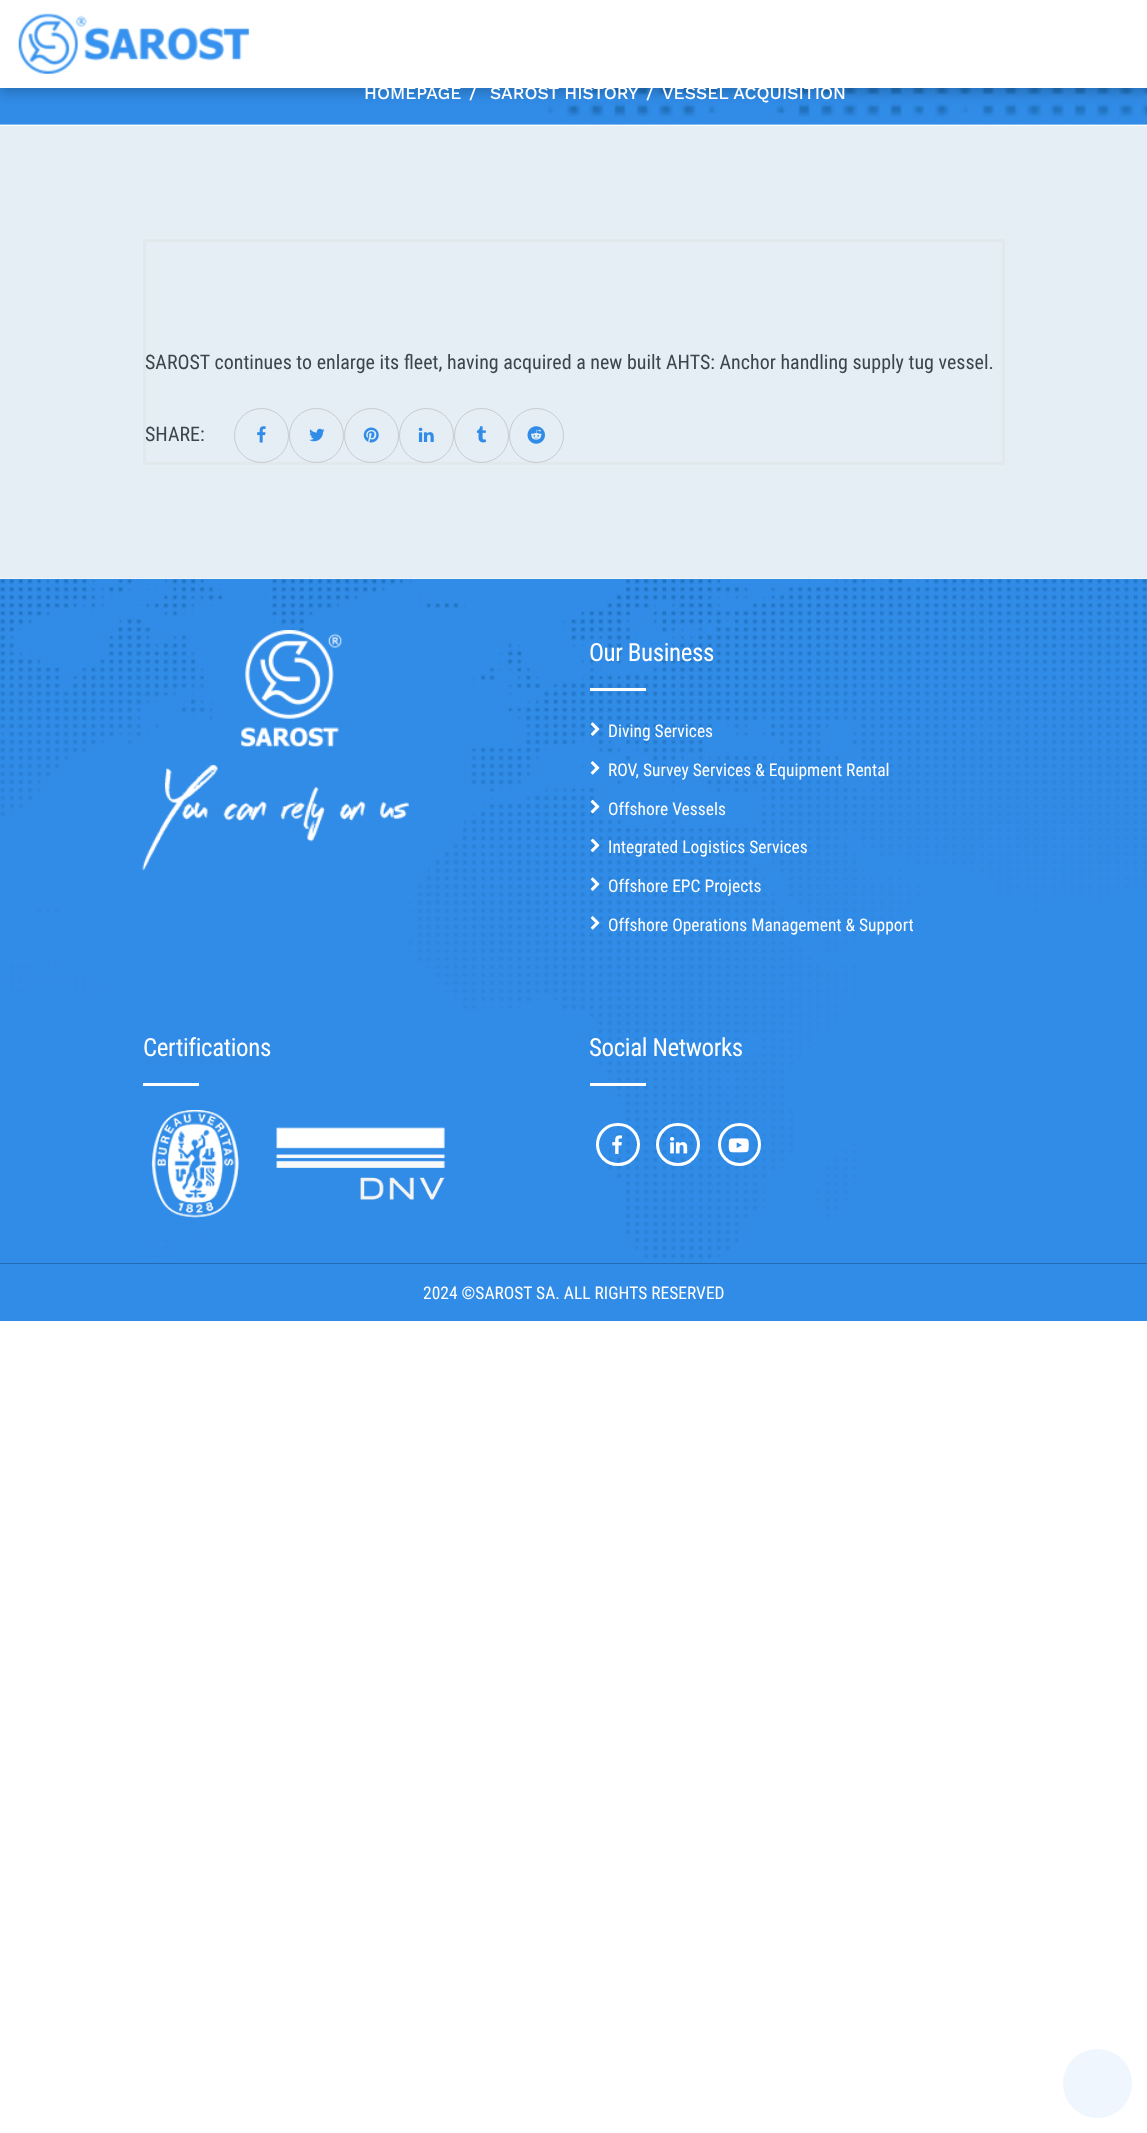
<svg xmlns="http://www.w3.org/2000/svg" width="1147" height="2133" viewBox="0 0 1147 2133">
  <defs>
    <clipPath id="clip1"><path d="M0 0H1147V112H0ZM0 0H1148V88H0Z" clip-rule="evenodd"/></clipPath>
  </defs>
  <rect width="100%" height="100%" fill="rgb(255,255,255)"/>
  <rect x="0" y="1" width="1147" height="124" fill="rgb(49,140,231)"/>
  <image x="0" y="1" width="1147" height="124" href="pic2.png"/>
  <rect x="0" y="1" width="1147" height="1" fill="rgba(242,245,247,0.8)"/>
  <g clip-path="url(#clip1)">
    <rect x="0" y="5" width="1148" height="88" fill="rgba(0,0,0,0.2)" filter="blur(6px)"/>
  </g>
  <g font-family="Work Sans" font-size="17.5" font-weight="500" fill="rgb(255,255,255)">
    <text x="364" y="99">HOMEPAGE</text>
    <text x="469" y="99">/</text>
    <text x="490" y="99">SAROST HISTORY</text>
    <text x="646" y="99">/</text>
    <text x="662" y="99">VESSEL ACQUISITION</text>
  </g>
  <rect x="0" y="1" width="1147" height="87" fill="rgba(255,255,255,0.98)"/>
  <rect x="0" y="2" width="1147" height="86" fill="rgba(255,255,255,0.88)"/>
  <image x="18" y="13" width="232" height="61" href="pic1.png"/>
  <rect x="0" y="124" width="1147" height="1" fill="rgba(255,255,255,0.4)"/>
  <rect x="0" y="126" width="1147" height="452" fill="rgb(229,238,245)"/>
  <rect x="144.5" y="240.5" width="859" height="223" fill="none" stroke="rgb(226,233,237)" stroke-width="3"/>
  <g font-family="Roboto Condensed" font-size="20" fill="rgb(59,69,76)">
    <text x="145" y="369">SAROST continues to enlarge its fleet, having acquired a new built AHTS: Anchor handling supply tug vessel.</text>
    <text x="145" y="441">SHARE:</text>
  </g>
  <circle cx="261.5" cy="435.5" r="27" fill="none" stroke="rgba(153,153,153,0.4)"/>
  <image x="257" y="426" width="9" height="17" href="pic3.png"/>
  <circle cx="316.5" cy="435.5" r="27" fill="none" stroke="rgba(153,153,153,0.4)"/>
  <image x="309" y="428" width="16" height="14" href="pic4.png"/>
  <circle cx="371.5" cy="435.5" r="27" fill="none" stroke="rgba(153,153,153,0.4)"/>
  <image x="363" y="427" width="16" height="16" href="pic5.png"/>
  <circle cx="426.5" cy="435.5" r="27" fill="none" stroke="rgba(153,153,153,0.4)"/>
  <image x="418" y="427" width="16" height="15" href="pic6.png"/>
  <circle cx="481.5" cy="435.5" r="27" fill="none" stroke="rgba(153,153,153,0.4)"/>
  <image x="476" y="426" width="11" height="17" href="pic7.png"/>
  <circle cx="536.5" cy="435.5" r="27" fill="none" stroke="rgba(153,153,153,0.4)"/>
  <image x="527" y="426" width="18" height="18" href="pic8.png"/>
  <rect x="0" y="579" width="1147" height="684" fill="rgb(49,140,231)"/>
  <image x="0" y="577" width="1147" height="686" href="pic9.png"/>
  <rect x="0" y="578" width="1147" height="1" fill="rgb(242,245,247)"/>
  <image x="142" y="630" width="267" height="240" href="pic10.png"/>
  <text x="589" y="661" font-family="Roboto Condensed" font-size="25" letter-spacing="-0.4" fill="rgb(255,255,255)">Our Business</text>
  <rect x="590" y="688" width="56" height="3" fill="rgb(255,255,255)"/>
  <image x="590" y="722" width="10" height="14" href="pic11.png"/>
  <text x="608" y="737" font-family="Roboto Condensed" font-size="17.5" fill="rgb(255,255,255)">Diving Services</text>
  <image x="590" y="761" width="10" height="14" href="pic12.png"/>
  <text x="608" y="776" font-family="Roboto Condensed" font-size="17.5" fill="rgb(255,255,255)">ROV, Survey Services &amp; Equipment Rental</text>
  <image x="590" y="799" width="10" height="15" href="pic13.png"/>
  <text x="608" y="815" font-family="Roboto Condensed" font-size="17.5" fill="rgb(255,255,255)">Offshore Vessels</text>
  <image x="590" y="838" width="10" height="15" href="pic14.png"/>
  <text x="608" y="853" font-family="Roboto Condensed" font-size="17.5" fill="rgb(255,255,255)">Integrated Logistics Services</text>
  <image x="590" y="877" width="10" height="14" href="pic15.png"/>
  <text x="608" y="892" font-family="Roboto Condensed" font-size="17.5" fill="rgb(255,255,255)">Offshore EPC Projects</text>
  <image x="590" y="916" width="10" height="14" href="pic16.png"/>
  <text x="608" y="931" font-family="Roboto Condensed" font-size="17.5" fill="rgb(255,255,255)">Offshore Operations Management &amp; Support</text>
  <text x="143" y="1056" font-family="Roboto Condensed" font-size="25" letter-spacing="-0.4" fill="rgb(255,255,255)">Certifications</text>
  <rect x="143" y="1083" width="56" height="3" fill="rgb(255,255,255)"/>
  <image x="151" y="1110" width="89" height="108" href="pic17.png"/>
  <image x="276" y="1127" width="169" height="73" href="pic18.png"/>
  <text x="589" y="1056" font-family="Roboto Condensed" font-size="25" letter-spacing="-0.4" fill="rgb(255,255,255)">Social Networks</text>
  <rect x="590" y="1083" width="56" height="3" fill="rgb(255,255,255)"/>
  <rect x="597.5" y="1124.5" width="41" height="40" rx="20" fill="none" stroke="rgb(255,255,255)" stroke-width="3"/>
  <image x="612" y="1135" width="10" height="19" href="pic19.png"/>
  <rect x="657.5" y="1124.5" width="41" height="40" rx="20" fill="none" stroke="rgb(255,255,255)" stroke-width="3"/>
  <image x="670" y="1137" width="18" height="17" href="pic20.png"/>
  <circle cx="739.5" cy="1144.5" r="20" fill="none" stroke="rgb(255,255,255)" stroke-width="3"/>
  <image x="728" y="1138" width="21" height="15" href="pic21.png"/>
  <rect x="0" y="1264" width="1147" height="57" fill="rgb(49,140,231)"/>
  <rect x="0" y="1263" width="1147" height="1" fill="rgb(35,108,181)"/>
  <text x="423" y="1299" font-family="Roboto Condensed" font-size="17.5" fill="rgb(255,255,255)">2024 ©SAROST SA. ALL RIGHTS RESERVED</text>
  <circle cx="1097.5" cy="2083.5" r="36" fill="rgb(240,246,253)" stroke="rgb(255,255,255)" stroke-width="3"/>
</svg>
